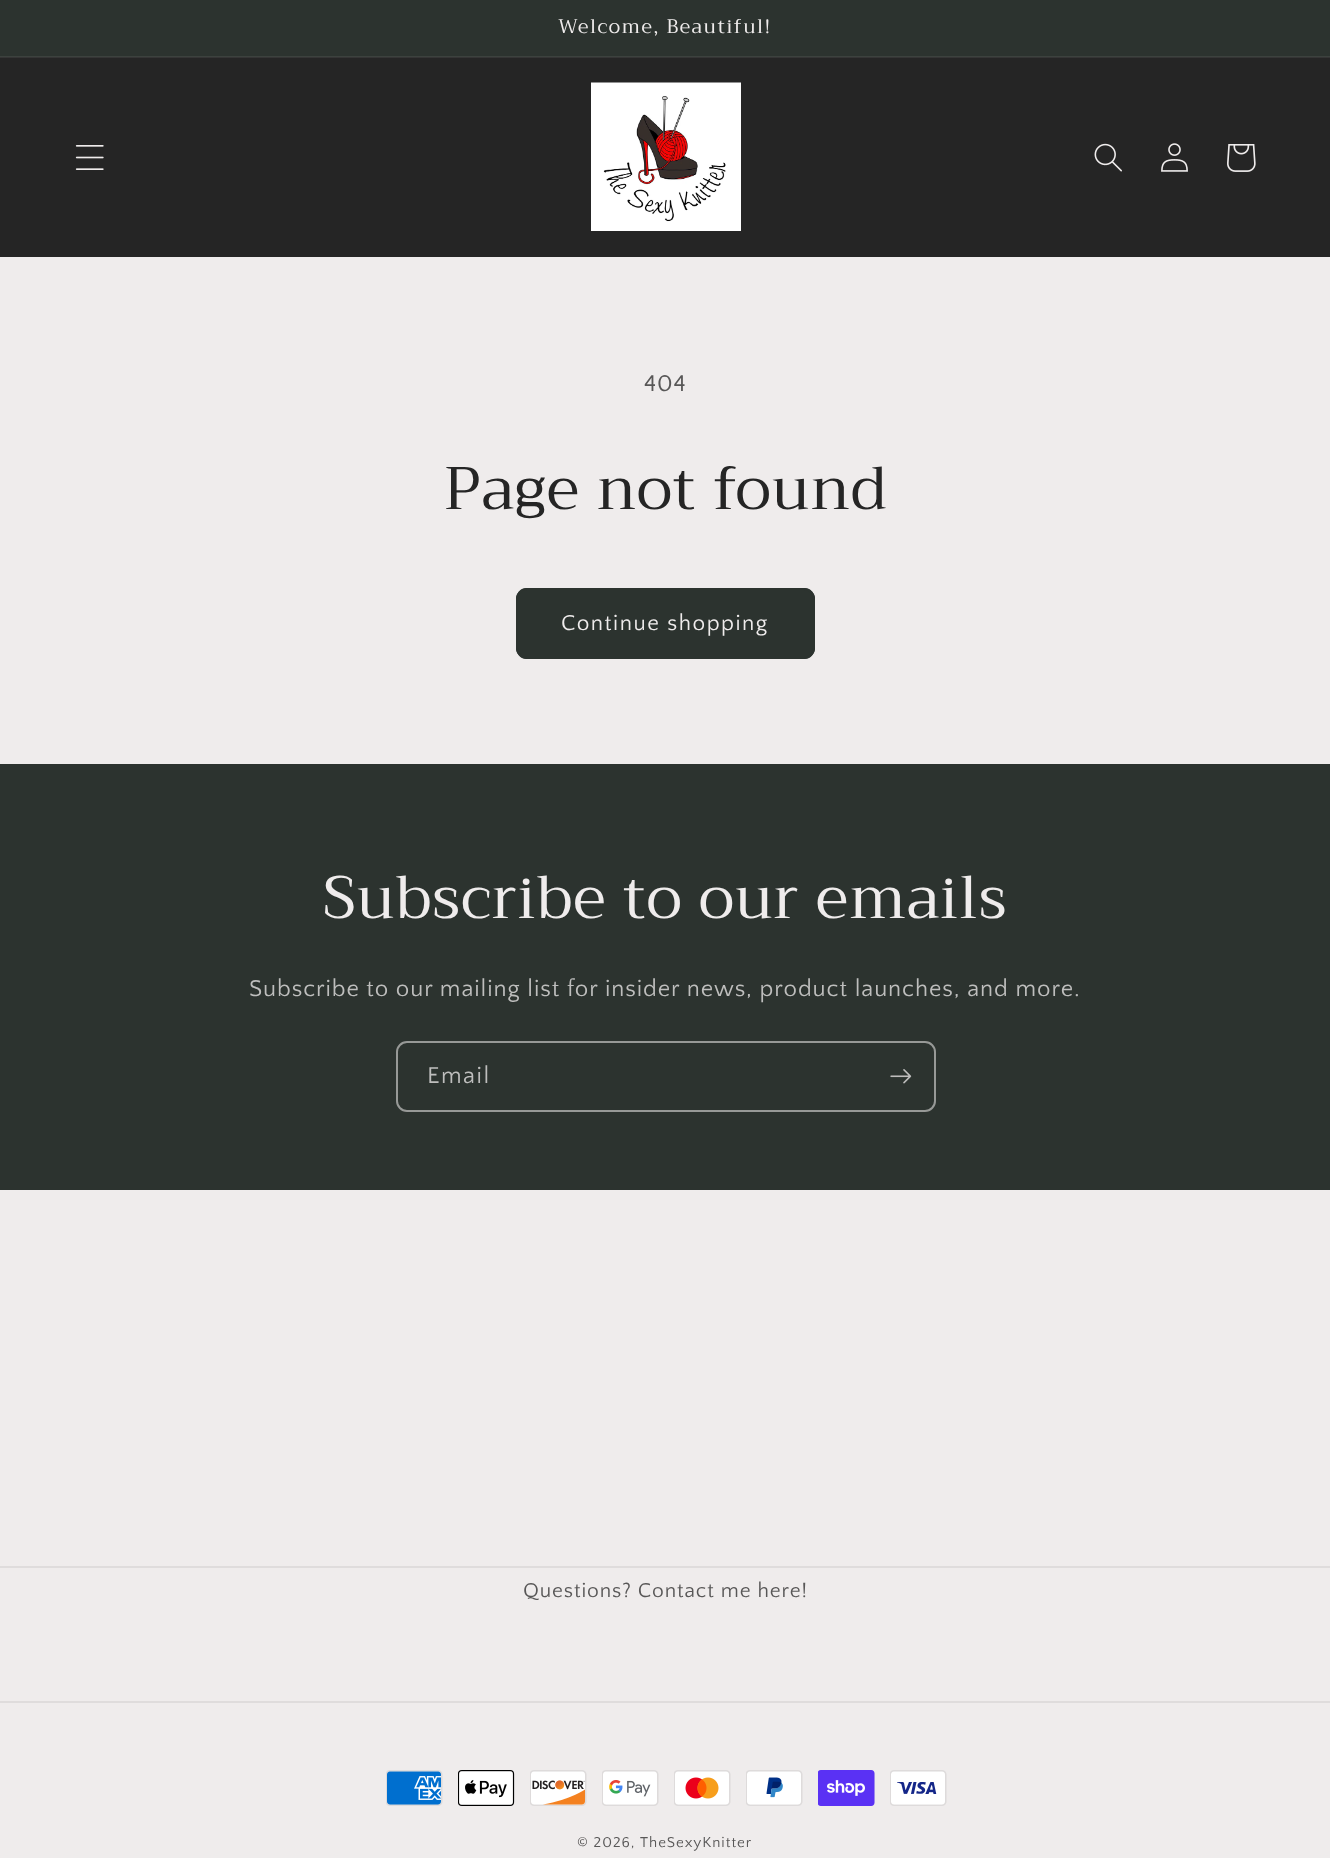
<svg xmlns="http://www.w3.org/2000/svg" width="1330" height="1858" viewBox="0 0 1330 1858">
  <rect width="100%" height="100%" fill="rgb(239,236,236)"/>
  <rect x="0" y="0" width="1330" height="56" fill="rgb(44,51,47)"/>
  <rect x="0" y="56" width="1330" height="1" fill="rgb(60,66,62)"/>
  <text x="558" y="33" font-family="Trirong" font-size="19.5" letter-spacing="1.5" fill="rgb(239,236,236)">Welcome, Beautiful!</text>
  <rect x="0" y="58" width="1330" height="199" fill="rgb(37,37,37)"/>
  <rect x="0" y="57" width="1330" height="1" fill="rgb(53,53,53)"/>
  <image x="75" y="145" width="29" height="25" href="pic1.png"/>
  <image x="591" y="82" width="150" height="149" href="pic2.png"/>
  <image x="1094" y="143" width="28" height="29" href="pic3.png"/>
  <image x="1161" y="143" width="27" height="29" href="pic4.png"/>
  <image x="1227" y="144" width="29" height="28" href="pic5.png"/>
  <text x="644" y="391" font-family="Quattrocento Sans" font-size="24" letter-spacing="0.9" fill="rgb(88,87,87)">404</text>
  <text x="444" y="509" font-family="Trirong" font-size="60" letter-spacing="0.9" fill="rgb(37,37,37)">Page not found</text>
  <rect x="516" y="588" width="299" height="71" rx="11" fill="rgb(44,51,47)"/>
  <rect x="517" y="589" width="297" height="69" rx="10" fill="none" stroke="rgb(44,51,47)" stroke-width="2"/>
  <text x="561" y="630" font-family="Quattrocento Sans" font-size="22.5" letter-spacing="1.5" fill="rgb(239,236,236)">Continue shopping</text>
  <rect x="0" y="764" width="1330" height="426" fill="rgb(44,51,47)"/>
  <text x="323" y="918" font-family="Trirong" font-size="60" letter-spacing="0.9" fill="rgb(239,236,236)">Subscribe to our emails</text>
  <text x="249" y="996" font-family="Quattrocento Sans" font-size="24" letter-spacing="0.9" fill="rgb(190,190,189)">Subscribe to our mailing list for insider news, product launches, and more.</text>
  <rect x="397" y="1042" width="538" height="69" rx="10" fill="none" stroke="rgb(151,153,151)" stroke-width="2"/>
  <text x="427" y="1083" font-family="Quattrocento Sans" font-size="24" letter-spacing="1.5" fill="rgb(190,190,189)">Email</text>
  <image x="890" y="1069" width="22" height="15" href="pic6.png"/>
  <rect x="0" y="1566" width="1330" height="2" fill="rgb(223,220,220)"/>
  <text x="523" y="1597" font-family="Quattrocento Sans" font-size="21" letter-spacing="0.9" fill="rgb(88,87,87)">Questions? Contact me here!</text>
  <rect x="0" y="1701" width="1330" height="2" fill="rgb(223,220,220)"/>
  <image x="386" y="1770" width="57" height="36" href="pic7.png"/>
  <image x="458" y="1770" width="57" height="36" href="pic8.png"/>
  <image x="530" y="1770" width="57" height="36" href="pic9.png"/>
  <image x="602" y="1770" width="57" height="36" href="pic10.png"/>
  <image x="674" y="1770" width="57" height="36" href="pic11.png"/>
  <image x="746" y="1770" width="57" height="36" href="pic12.png"/>
  <image x="818" y="1770" width="57" height="36" href="pic13.png"/>
  <image x="890" y="1770" width="57" height="36" href="pic14.png"/>
  <g font-family="Quattrocento Sans" font-size="15" letter-spacing="1" fill="rgb(88,87,87)">
    <text x="577" y="1847">© 2026,</text>
    <text x="640" y="1847">TheSexyKnitter</text>
  </g>
</svg>
